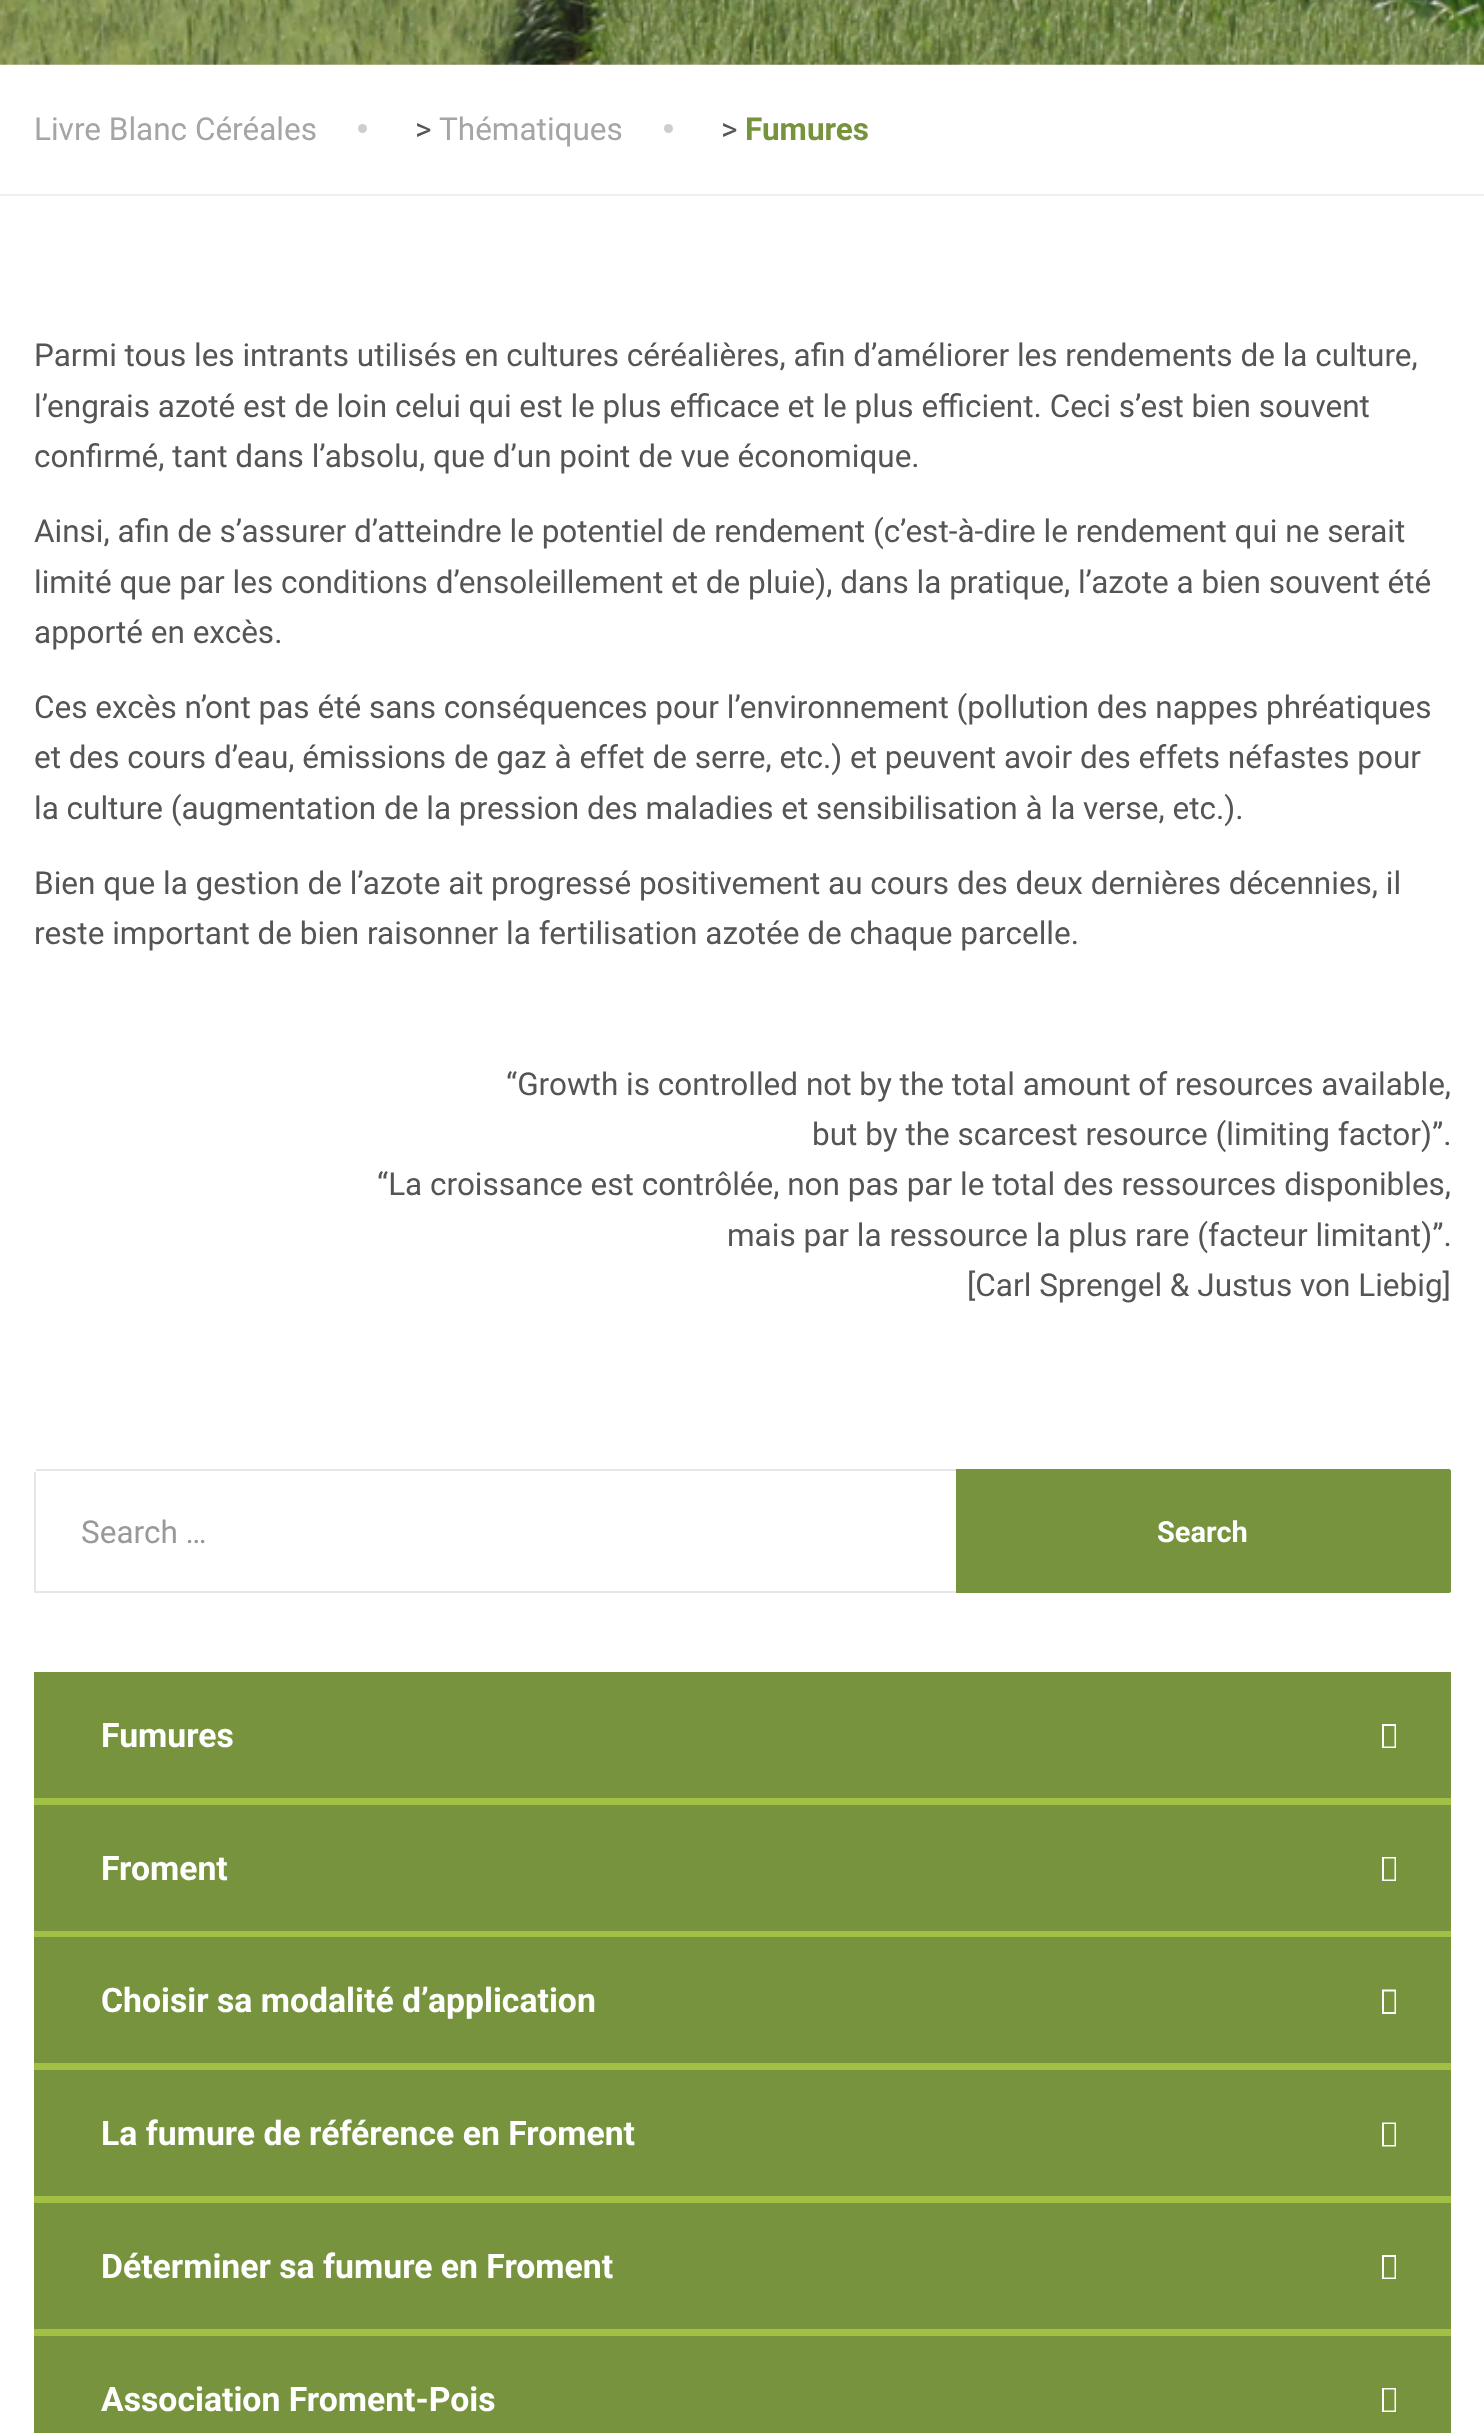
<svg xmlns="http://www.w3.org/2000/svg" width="1484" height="2433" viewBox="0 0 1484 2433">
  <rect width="100%" height="100%" fill="rgb(255,255,255)"/>
  <image x="0" y="0" width="1484" height="65" href="pic1.png"/>
  <rect x="0" y="194" width="1484" height="2" fill="rgb(240,240,240)"/>
  <text x="34" y="140" font-family="Roboto" font-size="31.5" fill="rgb(165,165,165)">Livre Blanc Céréales</text>
  <circle cx="362.5" cy="128.5" r="4.5" fill="rgb(206,206,206)"/>
  <text x="415" y="140" font-family="Roboto" font-size="31.5" fill="rgb(85,85,85)">&gt;</text>
  <text x="439" y="140" font-family="Roboto" font-size="31.5" fill="rgb(165,165,165)">Thématiques</text>
  <circle cx="668.5" cy="128.5" r="4.5" fill="rgb(206,206,206)"/>
  <text x="721" y="140" font-family="Roboto" font-size="31.5" fill="rgb(85,85,85)">&gt;</text>
  <text x="745" y="140" font-family="Roboto" font-size="31.5" font-weight="bold" fill="rgb(119,147,62)">Fumures</text>
  <g font-family="Roboto" font-size="31.5" fill="rgb(85,85,85)">
    <text>
      <tspan x="34" y="366">Parmi tous les intrants utilisés en cultures céréalières, afin d’améliorer les rendements de la culture,</tspan>
      <tspan x="34" y="417">l’engrais azoté est de loin celui qui est le plus efficace et le plus efficient. Ceci s’est bien souvent</tspan>
      <tspan x="34" y="467">confirmé, tant dans l’absolu, que d’un point de vue économique.</tspan>
    </text>
    <text>
      <tspan x="34" y="542">Ainsi, afin de s’assurer d’atteindre le potentiel de rendement (c’est-à-dire le rendement qui ne serait</tspan>
      <tspan x="34" y="593">limité que par les conditions d’ensoleillement et de pluie), dans la pratique, l’azote a bien souvent été</tspan>
      <tspan x="34" y="643">apporté en excès.</tspan>
    </text>
    <text>
      <tspan x="34" y="718">Ces excès n’ont pas été sans conséquences pour l’environnement (pollution des nappes phréatiques</tspan>
      <tspan x="34" y="768">et des cours d’eau, émissions de gaz à effet de serre, etc.) et peuvent avoir des effets néfastes pour</tspan>
      <tspan x="34" y="819">la culture (augmentation de la pression des maladies et sensibilisation à la verse, etc.).</tspan>
    </text>
    <text>
      <tspan x="34" y="894">Bien que la gestion de l’azote ait progressé positivement au cours des deux dernières décennies, il</tspan>
      <tspan x="34" y="944">reste important de bien raisonner la fertilisation azotée de chaque parcelle.</tspan>
    </text>
    <text x="506" y="1095">“Growth is controlled not by the total amount of resources available,</text>
    <text x="812" y="1145">but by the scarcest resource (limiting factor)”.</text>
    <text x="377" y="1195">“La croissance est contrôlée, non pas par le total des ressources disponibles,</text>
    <text x="727" y="1246">mais par la ressource la plus rare (facteur limitant)”.</text>
    <text x="967" y="1296">[Carl Sprengel &amp; Justus von Liebig]</text>
  </g>
  <rect x="36" y="1469" width="920" height="2" fill="rgb(230,230,230)"/>
  <rect x="36" y="1591" width="920" height="2" fill="rgb(230,230,230)"/>
  <rect x="34" y="1472" width="2" height="121" fill="rgb(230,230,230)"/>
  <text x="81" y="1543" font-family="Roboto" font-size="31.5" fill="rgb(153,153,153)">Search …</text>
  <path d="M956 1469H1449C1450 1469 1451 1470 1451 1471V1591C1451 1592 1450 1593 1449 1593H956Z" fill="rgb(119,147,62)"/>
  <text x="1157" y="1542" font-family="Roboto" font-size="29" font-weight="bold" fill="rgb(255,255,255)">Search</text>
  <rect x="34" y="1798" width="1417" height="538" fill="rgb(162,192,70)"/>
  <rect x="34" y="1672" width="1417" height="126" fill="rgb(119,147,62)"/>
  <text x="101" y="1747" font-family="Roboto" font-size="33.75" font-weight="bold" fill="rgb(255,255,255)">Fumures</text>
  <path d="M1382 1748V1724H1396V1748ZM1384 1746.5H1394.5V1726H1384Z" fill="rgb(255,255,255)"/>
  <rect x="34" y="1805" width="1417" height="126" fill="rgb(119,147,62)"/>
  <text x="101" y="1880" font-family="Roboto" font-size="33.75" font-weight="bold" fill="rgb(255,255,255)">Froment</text>
  <path d="M1382 1881V1857H1396V1881ZM1384 1879.5H1394.5V1858.5H1384Z" fill="rgb(255,255,255)"/>
  <rect x="34" y="1937" width="1417" height="126" fill="rgb(119,147,62)"/>
  <text x="101" y="2012" font-family="Roboto" font-size="33.75" font-weight="bold" fill="rgb(255,255,255)">Choisir sa modalité d’application</text>
  <path d="M1382 2014V1989.5H1396V2014ZM1384 2012H1394.5V1991.5H1384Z" fill="rgb(255,255,255)"/>
  <rect x="34" y="2070" width="1417" height="126" fill="rgb(119,147,62)"/>
  <text x="101" y="2145" font-family="Roboto" font-size="33.75" font-weight="bold" fill="rgb(255,255,255)">La fumure de référence en Froment</text>
  <path d="M1382 2146.5V2122.5H1396V2146.5ZM1384 2145H1394.5V2124H1384Z" fill="rgb(255,255,255)"/>
  <rect x="34" y="2203" width="1417" height="126" fill="rgb(119,147,62)"/>
  <text x="101" y="2278" font-family="Roboto" font-size="33.75" font-weight="bold" fill="rgb(255,255,255)">Déterminer sa fumure en Froment</text>
  <path d="M1382 2279V2255H1396V2279ZM1384 2277.5H1394.5V2257H1384Z" fill="rgb(255,255,255)"/>
  <rect x="34" y="2336" width="1417" height="97" fill="rgb(119,147,62)"/>
  <text x="101" y="2411" font-family="Roboto" font-size="33.75" font-weight="bold" fill="rgb(255,255,255)">Association Froment-Pois</text>
  <path d="M1382 2412V2388H1396V2412ZM1384 2410.5H1394.5V2389.5H1384Z" fill="rgb(255,255,255)"/>
</svg>
